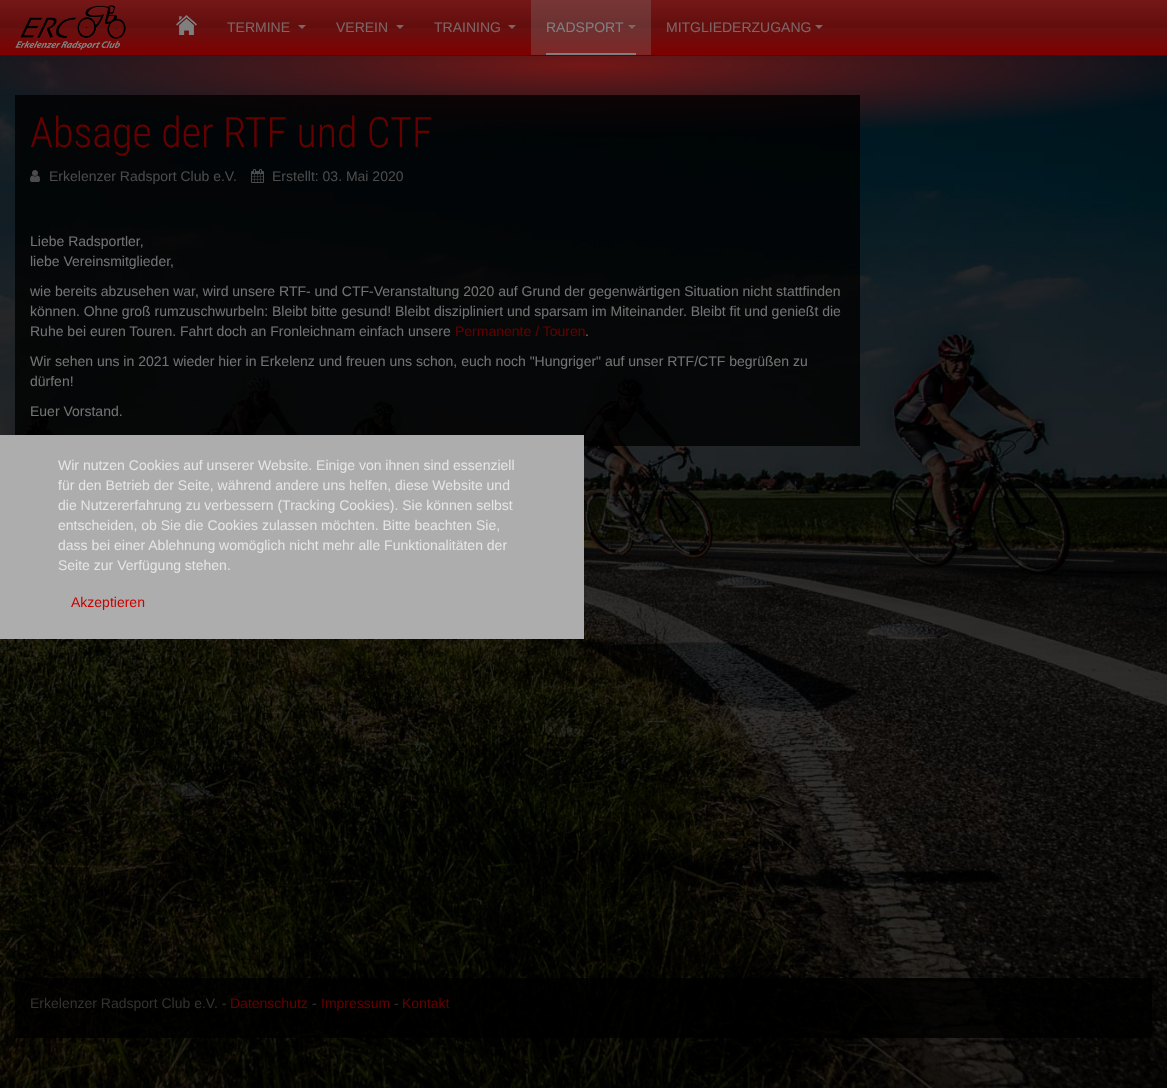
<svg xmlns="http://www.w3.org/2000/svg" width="1167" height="1088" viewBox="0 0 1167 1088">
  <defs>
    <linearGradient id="g1" gradientUnits="userSpaceOnUse" x1="584" y1="0" x2="584" y2="55"><stop offset="0" stop-color="rgb(234,46,46)"/><stop offset="0.5" stop-color="rgb(198,27,27)"/><stop offset="0.52" stop-color="rgb(209,33,33)"/><stop offset="1" stop-color="rgb(255,0,0)"/></linearGradient>
  </defs>
  <rect width="100%" height="100%" fill="rgb(255,255,255)"/>
  <rect x="0" y="0" width="1167" height="55" fill="url(#g1)"/>
  <rect x="0" y="55" width="1167" height="1" fill="rgb(179,0,0)"/>
  <image x="15" y="5" width="111" height="45" href="pic1.png"/>
  <image x="176" y="15" width="21" height="20" href="pic2.png"/>
  <text x="227" y="32" font-family="Liberation Sans" font-size="14" fill="rgb(255,204,204)">TERMINE</text>
  <path d="M298 25H306L302 29Z" fill="rgb(255,204,204)"/>
  <text x="336" y="32" font-family="Liberation Sans" font-size="14" fill="rgb(255,204,204)">VEREIN</text>
  <path d="M396 25H404L400 29Z" fill="rgb(255,204,204)"/>
  <text x="434" y="32" font-family="Liberation Sans" font-size="14" fill="rgb(255,204,204)">TRAINING</text>
  <path d="M508 25H516L512 29Z" fill="rgb(255,204,204)"/>
  <path d="M531-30V55H546V0H636V55H651V-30Z" fill="rgba(255,255,255,0.3)"/>
  <rect x="546" y="0" width="90" height="53" fill="rgba(255,255,255,0.3)"/>
  <rect x="546" y="53" width="90" height="2" fill="rgb(255,255,255)"/>
  <text x="546" y="32" font-family="Liberation Sans" font-size="14" fill="rgb(255,255,255)">RADSPORT</text>
  <path d="M628 25H636L632 29Z" fill="rgb(255,204,204)"/>
  <text x="666" y="32" font-family="Liberation Sans" font-size="14" fill="rgb(255,204,204)">MITGLIEDERZUGANG</text>
  <path d="M815 25H823L819 29Z" fill="rgb(255,204,204)"/>
  <image x="0" y="56" width="1167" height="1032" href="pic5.png"/>
  <rect x="15" y="95" width="845" height="351" fill="rgba(0,0,0,0.8)"/>
  <text x="30" y="147" font-family="Roboto Condensed" font-size="42" font-weight="300" fill="rgb(204,0,0)">Absage der RTF und CTF</text>
  <image x="30" y="170" width="10" height="12" href="pic3.png"/>
  <text x="49" y="181" font-family="Liberation Sans" font-size="14" fill="rgb(153,153,153)">Erkelenzer Radsport Club e.V.</text>
  <image x="251" y="169" width="13" height="14" href="pic4.png"/>
  <text x="272" y="181" font-family="Liberation Sans" font-size="14" fill="rgb(153,153,153)">Erstellt: 03. Mai 2020</text>
  <g font-family="Liberation Sans" font-size="14" fill="rgb(230,230,230)">
    <text>
      <tspan x="30" y="246">Liebe Radsportler,</tspan>
      <tspan x="30" y="266">liebe Vereinsmitglieder,</tspan>
    </text>
    <text>
      <tspan x="30" y="296">wie bereits abzusehen war, wird unsere RTF- und CTF-Veranstaltung 2020 auf Grund der gegenwärtigen Situation nicht stattfinden</tspan>
      <tspan x="30" y="316">können. Ohne groß rumzuschwurbeln: Bleibt bitte gesund! Bleibt diszipliniert und sparsam im Miteinander. Bleibt fit und genießt die</tspan>
      <tspan x="30" y="336">Ruhe bei euren Touren. Fahrt doch an Fronleichnam einfach unsere</tspan>
    </text>
  </g>
  <text x="455" y="336" font-family="Liberation Sans" font-size="14" fill="rgb(204,0,0)">Permanente / Touren</text>
  <g font-family="Liberation Sans" font-size="14" fill="rgb(230,230,230)">
    <text x="585" y="336">.</text>
    <text>
      <tspan x="30" y="366">Wir sehen uns in 2021 wieder hier in Erkelenz und freuen uns schon, euch noch "Hungriger" auf unser RTF/CTF begrüßen zu</tspan>
      <tspan x="30" y="386">dürfen!</tspan>
    </text>
    <text x="30" y="416">Euer Vorstand.</text>
  </g>
  <rect x="15" y="978" width="1137" height="60" fill="rgba(0,0,0,0.8)"/>
  <text x="30" y="1008" font-family="Liberation Sans" font-size="14" fill="rgb(102,102,102)">Erkelenzer Radsport Club e.V. -</text>
  <text x="230" y="1008" font-family="Liberation Sans" font-size="14" fill="rgb(204,0,0)">Datenschutz</text>
  <text x="312" y="1008" font-family="Liberation Sans" font-size="14" fill="rgb(102,102,102)">-</text>
  <text x="321" y="1008" font-family="Liberation Sans" font-size="14" fill="rgb(204,0,0)">Impressum</text>
  <text x="394" y="1008" font-family="Liberation Sans" font-size="14" fill="rgb(102,102,102)">-</text>
  <text x="402" y="1008" font-family="Liberation Sans" font-size="14" fill="rgb(204,0,0)">Kontakt</text>
  <rect x="-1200" y="-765" width="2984" height="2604" fill="none" stroke="rgba(0,0,0,0.5)" stroke-width="2400"/>
  <rect x="0" y="435" width="584" height="204" fill="rgb(173,173,173)"/>
  <g font-family="Liberation Sans" font-size="14" fill="rgb(230,230,230)">
    <text>
      <tspan x="58" y="470">Wir nutzen Cookies auf unserer Website. Einige von ihnen sind essenziell</tspan>
      <tspan x="58" y="490">für den Betrieb der Seite, während andere uns helfen, diese Website und</tspan>
      <tspan x="58" y="510">die Nutzererfahrung zu verbessern (Tracking Cookies). Sie können selbst</tspan>
      <tspan x="58" y="530">entscheiden, ob Sie die Cookies zulassen möchten. Bitte beachten Sie,</tspan>
      <tspan x="58" y="550">dass bei einer Ablehnung womöglich nicht mehr alle Funktionalitäten der</tspan>
      <tspan x="58" y="570">Seite zur Verfügung stehen.</tspan>
    </text>
  </g>
  <text x="71" y="607" font-family="Liberation Sans" font-size="14" fill="rgb(204,0,0)">Akzeptieren</text>
</svg>
